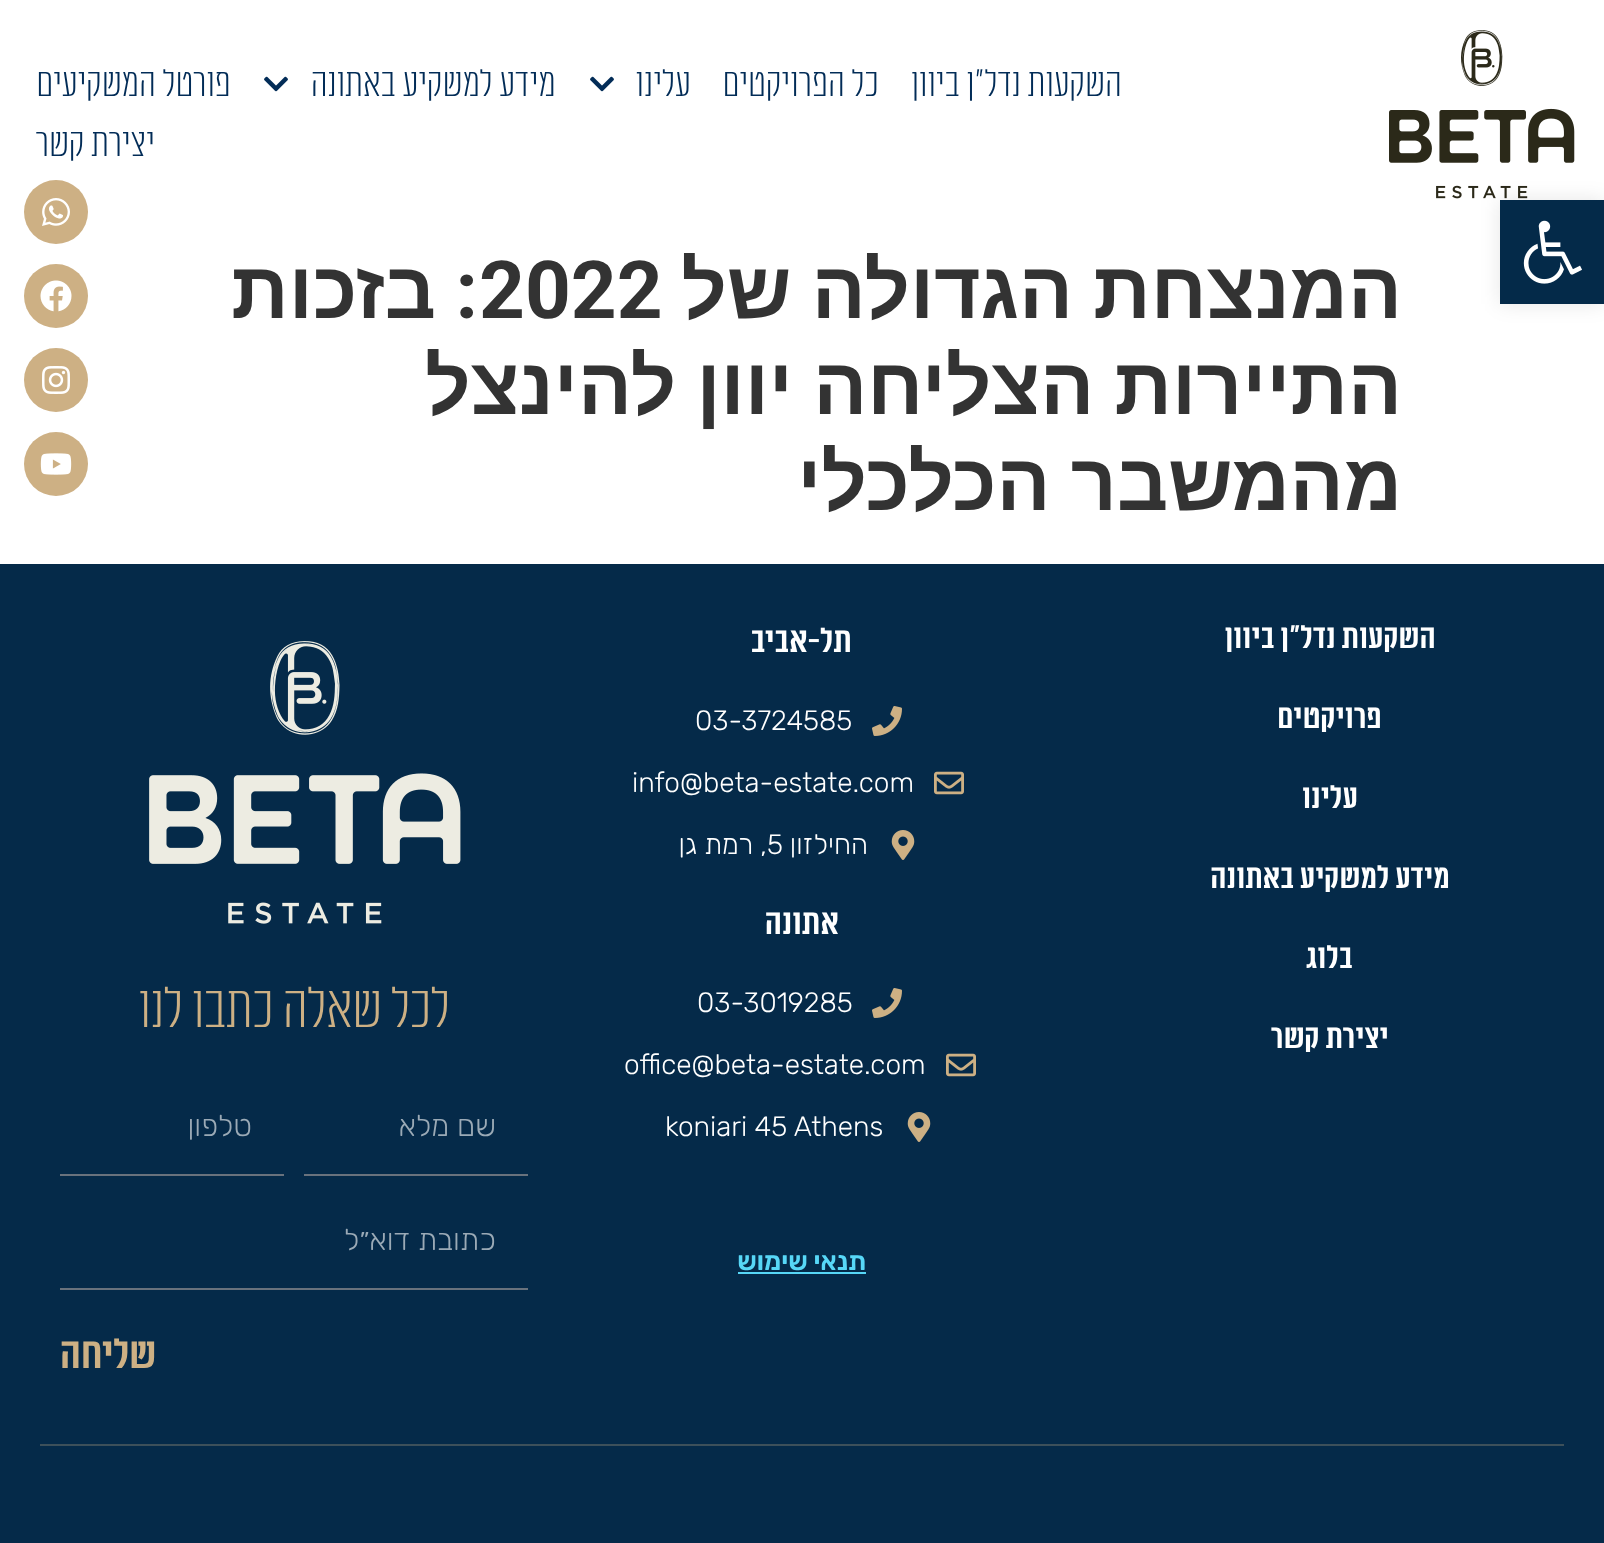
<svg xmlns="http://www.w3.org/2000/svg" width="1604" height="1543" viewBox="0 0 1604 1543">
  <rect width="100%" height="100%" fill="rgb(255,255,255)"/>
  <image x="1389" y="30" width="186" height="169" href="pic1.png"/>
  <g font-family="'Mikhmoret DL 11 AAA'" font-size="40" font-weight="300" letter-spacing="0.4" direction="rtl" fill="rgb(2,44,87)">
    <text x="1122" y="96">השקעות נדל"ן ביוון</text>
    <text x="879" y="96">כל הפרויקטים</text>
    <text x="691" y="96">עלינו</text>
  </g>
  <image x="590" y="76" width="24" height="16" href="pic2.png"/>
  <text x="556" y="96" font-family="'Mikhmoret DL 11 AAA'" font-size="40" font-weight="300" letter-spacing="0.4" direction="rtl" fill="rgb(2,44,87)">מידע למשקיע באתונה</text>
  <image x="264" y="76" width="24" height="16" href="pic2.png"/>
  <g font-family="'Mikhmoret DL 11 AAA'" font-size="40" font-weight="300" letter-spacing="0.4" direction="rtl" fill="rgb(2,44,87)">
    <text x="231" y="96">פורטל המשקיעים</text>
    <text x="155" y="156">יצירת קשר</text>
  </g>
  <circle cx="56" cy="212" r="32" fill="rgb(205,176,132)"/>
  <image x="42" y="198" width="28" height="28" href="pic3.png"/>
  <circle cx="56" cy="296" r="32" fill="rgb(205,176,132)"/>
  <image x="40" y="280" width="32" height="32" href="pic4.png"/>
  <circle cx="56" cy="380" r="32" fill="rgb(205,176,132)"/>
  <image x="42" y="366" width="28" height="28" href="pic5.png"/>
  <circle cx="56" cy="464" r="32" fill="rgb(205,176,132)"/>
  <image x="40" y="453" width="32" height="22" href="pic6.png"/>
  <rect x="1500" y="200" width="104" height="104" fill="rgba(0,0,0,0.1)" filter="blur(10px)"/>
  <rect x="1500" y="200" width="104" height="104" fill="rgb(4,42,73)"/>
  <image x="1523" y="220" width="59" height="64" href="pic7.png"/>
  <text x="1402" y="318" word-spacing="-2" font-family="Liberation Sans" font-size="80" font-weight="bold" direction="rtl" fill="rgb(51,51,51)">המנצחת הגדולה של</text>
  <text x="479" y="318" font-family="Roboto" font-size="80" font-weight="bold" fill="rgb(51,51,51)">2022</text>
  <text x="478" y="318" font-family="Roboto" font-size="80" font-weight="bold" direction="rtl" fill="rgb(51,51,51)">:</text>
  <g font-family="Liberation Sans" font-size="80" font-weight="bold" direction="rtl" fill="rgb(51,51,51)">
    <text x="436" y="318">בזכות</text>
    <text>
      <tspan x="1402" y="414" word-spacing="-2">התיירות הצליחה יוון להינצל</tspan>
      <tspan x="1402" y="510" word-spacing="-2">מהמשבר הכלכלי</tspan>
    </text>
  </g>
  <rect x="0" y="564" width="1604" height="979" fill="rgb(5,42,73)"/>
  <g font-family="'Mikhmoret DL 11 AAA'" font-size="34" font-weight="bold" letter-spacing="0.4" direction="rtl" fill="rgb(255,255,255)">
    <text x="1436" y="648">השקעות נדל"ן ביוון</text>
    <text x="1382" y="728">פרויקטים</text>
    <text x="1358" y="808">עלינו</text>
    <text x="1450" y="888">מידע למשקיע באתונה</text>
    <text x="1353" y="968">בלוג</text>
    <text x="1389" y="1048">יצירת קשר</text>
  </g>
  <text x="852" y="652" font-family="'Mikhmoret DL 11 AAA'" font-size="36" font-weight="bold" letter-spacing="0.4" direction="rtl" fill="rgb(255,255,255)">תל-אביב</text>
  <image x="872" y="706" width="30" height="30" href="pic8.png"/>
  <text x="695" y="730" font-family="Rubik" font-size="28" font-weight="300" fill="rgb(255,255,255)">03-3724585</text>
  <image x="934" y="771" width="30" height="24" href="pic9.png"/>
  <text x="632" y="792" font-family="Rubik" font-size="28" font-weight="300" fill="rgb(255,255,255)">info@beta-estate.com</text>
  <image x="891" y="830" width="24" height="30" href="pic10.png"/>
  <text x="868" y="854" font-family="Rubik" font-size="28" font-weight="300" direction="rtl" fill="rgb(255,255,255)">החילזון</text>
  <text x="767" y="854" font-family="Rubik" font-size="28" font-weight="300" fill="rgb(255,255,255)">5</text>
  <text x="767" y="854" font-family="Rubik" font-size="28" font-weight="300" direction="rtl" fill="rgb(255,255,255)">, רמת גן</text>
  <text x="839" y="934" font-family="'Mikhmoret DL 11 AAA'" font-size="36" font-weight="bold" letter-spacing="0.4" direction="rtl" fill="rgb(255,255,255)">אתונה</text>
  <image x="872" y="988" width="30" height="30" href="pic8.png"/>
  <text x="697" y="1012" font-family="Rubik" font-size="28" font-weight="300" fill="rgb(255,255,255)">03-3019285</text>
  <image x="946" y="1053" width="30" height="24" href="pic9.png"/>
  <text x="624" y="1074" font-family="Rubik" font-size="28" font-weight="300" fill="rgb(255,255,255)">office@beta-estate.com</text>
  <image x="907" y="1112" width="24" height="30" href="pic10.png"/>
  <text x="665" y="1136" font-family="Rubik" font-size="28" font-weight="300" fill="rgb(255,255,255)">koniari 45 Athens</text>
  <text x="866" y="1270" font-family="Rubik" font-size="26" font-weight="600" direction="rtl" fill="rgb(87,215,247)">תנאי שימוש</text>
  <rect x="738" y="1272" width="128" height="2" fill="rgb(87,215,247)"/>
  <image x="149" y="641" width="312" height="283" href="pic11.png"/>
  <text x="450" y="1027" font-family="'Mikhmoret DL 11 AAA'" font-size="60" font-weight="300" direction="rtl" fill="rgb(205,176,132)">לכל שאלה כתבו לנו</text>
  <rect x="304" y="1174" width="224" height="2" fill="rgb(105,114,125)"/>
  <text x="496" y="1136" font-family="Rubik" font-size="30" font-weight="300" direction="rtl" fill="rgb(155,170,182)">שם מלא</text>
  <rect x="60" y="1174" width="224" height="2" fill="rgb(105,114,125)"/>
  <text x="252" y="1136" font-family="Rubik" font-size="30" font-weight="300" direction="rtl" fill="rgb(155,170,182)">טלפון</text>
  <rect x="60" y="1288" width="468" height="2" fill="rgb(105,114,125)"/>
  <text x="496" y="1250" font-family="Rubik" font-size="30" font-weight="300" direction="rtl" fill="rgb(155,170,182)">כתובת דוא״ל</text>
  <text x="156" y="1368" font-family="'Mikhmoret DL 11 AAA'" font-size="44" font-weight="bold" direction="rtl" fill="rgb(205,176,132)">שליחה</text>
  <rect x="40" y="1444" width="1524" height="2" fill="rgb(61,80,90)"/>
</svg>
